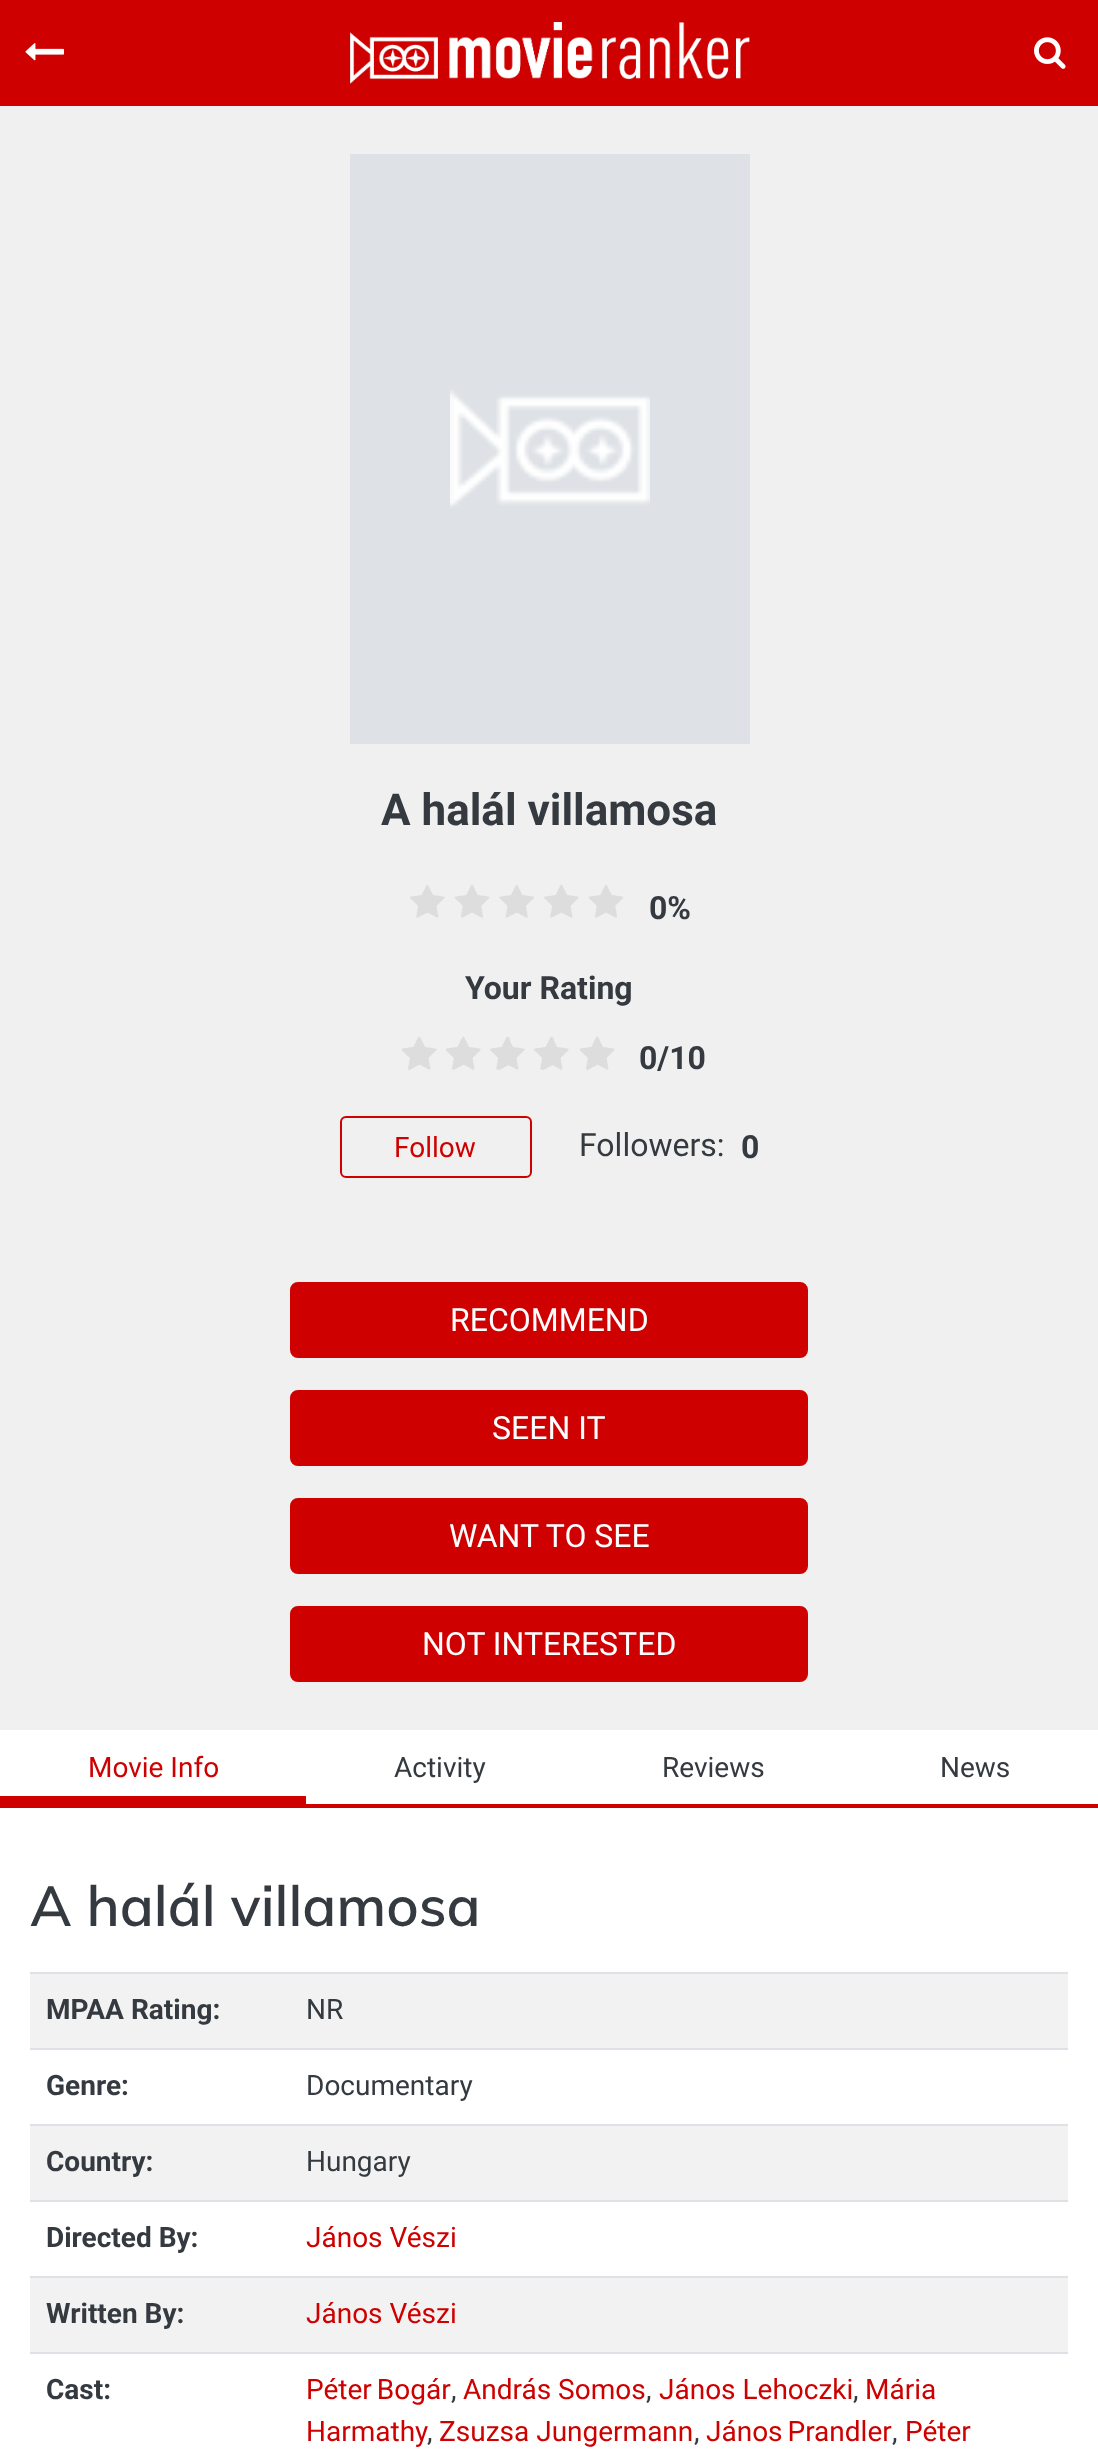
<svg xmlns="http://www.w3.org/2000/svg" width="1098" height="2462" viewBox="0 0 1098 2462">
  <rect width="100%" height="100%" fill="rgb(255,255,255)"/>
  <rect x="0" y="0" width="1098" height="106" fill="rgb(206,1,0)"/>
  <image x="25" y="43" width="39" height="18" href="pic1.png"/>
  <image x="350" y="22" width="400" height="62" href="pic2.png"/>
  <image x="1034" y="37" width="32" height="32" href="pic3.png"/>
  <rect x="0" y="106" width="1098" height="1624" fill="rgb(240,240,240)"/>
  <rect x="350" y="154" width="400" height="590" fill="rgb(222,226,230)"/>
  <image x="450" y="390" width="200" height="118" href="pic4.png"/>
  <text x="381" y="825" font-family="Roboto" font-size="44" font-weight="bold" fill="rgb(52,58,64)">A halál villamosa</text>
  <image x="410" y="884" width="214" height="34" href="pic5.png"/>
  <g font-family="Roboto" font-size="32" font-weight="bold" fill="rgb(52,58,64)">
    <text x="649" y="919">0%</text>
    <text x="465" y="999">Your Rating</text>
  </g>
  <image x="402" y="1036" width="35" height="34" href="pic6.png"/>
  <image x="446" y="1036" width="35" height="34" href="pic6.png"/>
  <path d="M419.5 1036.5V1064.5C405.5 1072 407.5 1073 410 1058C399 1047 398 1049.5 413.5 1047C414.5 1045.5 418 1036.5 419.5 1036.5ZM463.5 1036.5V1064.5C449.5 1072 451.5 1073 454 1058C443 1047 442 1049.5 457.5 1047C458.5 1045.5 462 1036.5 463.5 1036.5Z" fill="rgb(221,221,221)"/>
  <image x="490" y="1036" width="35" height="34" href="pic6.png"/>
  <image x="534" y="1036" width="35" height="34" href="pic6.png"/>
  <path d="M509.5 1036.5V1064.5C495.5 1072 497.5 1073 500 1058C489 1047 488 1049.5 503.5 1047C504.5 1045.5 508 1036.5 509.5 1036.5ZM553.5 1036.5V1064.5C539.5 1072 541.5 1073 544 1058C533 1047 532 1049.5 547.5 1047C548.5 1045.5 552 1036.5 553.5 1036.5Z" fill="rgb(221,221,221)"/>
  <image x="580" y="1036" width="35" height="34" href="pic6.png"/>
  <path d="M597.5 1036.5V1064.5C583.5 1072 585.5 1073 588 1058C577 1047 576 1049.5 591.5 1047C592.5 1045.5 596 1036.5 597.5 1036.5Z" fill="rgb(221,221,221)"/>
  <text x="639" y="1069" font-family="Roboto" font-size="32" font-weight="bold" fill="rgb(52,58,64)">0/10</text>
  <rect x="341" y="1117" width="190" height="60" rx="5" fill="none" stroke="rgb(206,1,0)" stroke-width="2"/>
  <text x="394" y="1157" font-family="Roboto" font-size="28" fill="rgb(206,1,0)">Follow</text>
  <text x="579" y="1156" font-family="Roboto" font-size="32" fill="rgb(52,58,64)">Followers:</text>
  <text x="741" y="1158" font-family="Roboto" font-size="32" font-weight="bold" fill="rgb(52,58,64)">0</text>
  <rect x="291" y="1283" width="516" height="74" rx="7" fill="rgb(206,1,0)" stroke="rgb(206,1,0)" stroke-width="2"/>
  <text x="450" y="1331" font-family="Roboto" font-size="32" fill="rgb(255,255,255)">RECOMMEND</text>
  <rect x="291" y="1391" width="516" height="74" rx="7" fill="rgb(206,1,0)" stroke="rgb(206,1,0)" stroke-width="2"/>
  <text x="492" y="1439" font-family="Roboto" font-size="32" fill="rgb(255,255,255)">SEEN IT</text>
  <rect x="291" y="1499" width="516" height="74" rx="7" fill="rgb(206,1,0)" stroke="rgb(206,1,0)" stroke-width="2"/>
  <text x="449" y="1547" font-family="Roboto" font-size="32" fill="rgb(255,255,255)">WANT TO SEE</text>
  <rect x="291" y="1607" width="516" height="74" rx="7" fill="rgb(206,1,0)" stroke="rgb(206,1,0)" stroke-width="2"/>
  <text x="422" y="1655" font-family="Roboto" font-size="32" fill="rgb(255,255,255)">NOT INTERESTED</text>
  <rect x="0" y="1804" width="1098" height="4" fill="rgb(206,1,0)"/>
  <rect x="0" y="1796" width="306" height="8" fill="rgb(206,1,0)"/>
  <text x="88" y="1777" font-family="Roboto" font-size="28" fill="rgb(206,1,0)">Movie Info</text>
  <g font-family="Roboto" font-size="28" fill="rgb(52,58,64)">
    <text x="394" y="1777">Activity</text>
    <text x="662" y="1777">Reviews</text>
    <text x="940" y="1777">News</text>
  </g>
  <text x="30" y="1926" font-family="Muli" font-size="56" font-weight="600" fill="rgb(52,58,64)">A halál villamosa</text>
  <rect x="30" y="1974" width="1038" height="74" fill="rgb(242,242,242)"/>
  <text x="46" y="2019" font-family="Roboto" font-size="28" font-weight="bold" fill="rgb(52,58,64)">MPAA Rating:</text>
  <rect x="30" y="1972" width="1038" height="2" fill="rgb(222,226,230)"/>
  <text x="306" y="2019" font-family="Roboto" font-size="28" fill="rgb(52,58,64)">NR</text>
  <text x="46" y="2095" font-family="Roboto" font-size="28" font-weight="bold" fill="rgb(52,58,64)">Genre:</text>
  <rect x="30" y="2048" width="1038" height="2" fill="rgb(222,226,230)"/>
  <text x="306" y="2095" font-family="Roboto" font-size="28" fill="rgb(52,58,64)">Documentary</text>
  <rect x="30" y="2126" width="1038" height="74" fill="rgb(242,242,242)"/>
  <text x="46" y="2171" font-family="Roboto" font-size="28" font-weight="bold" fill="rgb(52,58,64)">Country:</text>
  <rect x="30" y="2124" width="1038" height="2" fill="rgb(222,226,230)"/>
  <text x="306" y="2171" font-family="Roboto" font-size="28" fill="rgb(52,58,64)">Hungary</text>
  <text x="46" y="2247" font-family="Roboto" font-size="28" font-weight="bold" fill="rgb(52,58,64)">Directed By:</text>
  <rect x="30" y="2200" width="1038" height="2" fill="rgb(222,226,230)"/>
  <text x="306" y="2247" font-family="Roboto" font-size="28" fill="rgb(206,1,0)">János Vészi</text>
  <rect x="30" y="2278" width="1038" height="74" fill="rgb(242,242,242)"/>
  <text x="46" y="2323" font-family="Roboto" font-size="28" font-weight="bold" fill="rgb(52,58,64)">Written By:</text>
  <rect x="30" y="2276" width="1038" height="2" fill="rgb(222,226,230)"/>
  <text x="306" y="2323" font-family="Roboto" font-size="28" fill="rgb(206,1,0)">János Vészi</text>
  <text x="46" y="2399" font-family="Roboto" font-size="28" font-weight="bold" fill="rgb(52,58,64)">Cast:</text>
  <rect x="30" y="2352" width="1038" height="2" fill="rgb(222,226,230)"/>
  <text x="306" y="2399" word-spacing="-2" font-family="Roboto" font-size="28" fill="rgb(206,1,0)">Péter Bogár</text>
  <text x="451" y="2399" font-family="Roboto" font-size="28" fill="rgb(52,58,64)">,</text>
  <text x="463" y="2399" font-family="Roboto" font-size="28" fill="rgb(206,1,0)">András Somos</text>
  <text x="646" y="2399" font-family="Roboto" font-size="28" fill="rgb(52,58,64)">,</text>
  <text x="659" y="2399" font-family="Roboto" font-size="28" fill="rgb(206,1,0)">János Lehoczki</text>
  <text x="853" y="2399" font-family="Roboto" font-size="28" fill="rgb(52,58,64)">,</text>
  <g font-family="Roboto" font-size="28" fill="rgb(206,1,0)">
    <text x="865" y="2399">Mária</text>
    <text x="306" y="2441">Harmathy</text>
  </g>
  <text x="427" y="2441" font-family="Roboto" font-size="28" fill="rgb(52,58,64)">,</text>
  <text x="439" y="2441" font-family="Roboto" font-size="28" fill="rgb(206,1,0)">Zsuzsa Jungermann</text>
  <text x="694" y="2441" font-family="Roboto" font-size="28" fill="rgb(52,58,64)">,</text>
  <text x="706" y="2441" word-spacing="-2" font-family="Roboto" font-size="28" fill="rgb(206,1,0)">János Prandler</text>
  <text x="892" y="2441" font-family="Roboto" font-size="28" fill="rgb(52,58,64)">,</text>
  <text x="905" y="2441" font-family="Roboto" font-size="28" fill="rgb(206,1,0)">Péter</text>
</svg>
